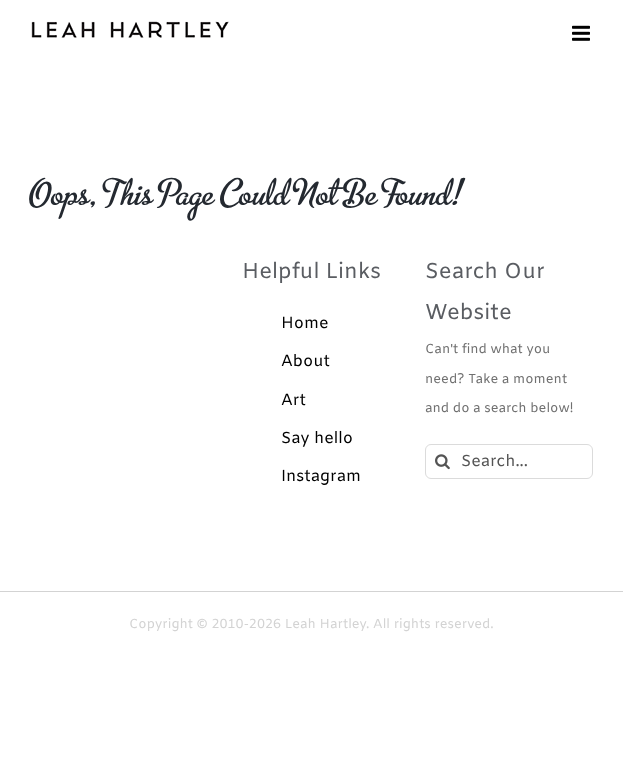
<svg xmlns="http://www.w3.org/2000/svg" width="623" height="767" viewBox="0 0 623 767">
  <rect width="100%" height="100%" fill="rgb(255,255,255)"/>
  <image x="31" y="21" width="198" height="17" href="pic1.png"/>
  <image x="572" y="25" width="18" height="16" href="pic2.png"/>
  <text x="30" y="205" font-family="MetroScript" font-size="41.75" fill="rgb(36,41,48)">Oops, This Page Could Not Be Found!</text>
  <text x="242" y="278" font-family="Amiko" font-size="21.5" fill="rgb(90,93,98)">Helpful Links</text>
  <g font-family="Amiko" font-size="16" fill="rgb(0,0,0)">
    <text x="281" y="328">Home</text>
    <text x="281" y="366">About</text>
    <text x="281" y="405">Art</text>
    <text x="281" y="443">Say hello</text>
    <text x="281" y="481">Instagram</text>
  </g>
  <g font-family="Amiko" font-size="21.5" fill="rgb(90,93,98)">
    <text>
      <tspan x="425" y="278">Search Our</tspan>
      <tspan x="425" y="319">Website</tspan>
    </text>
  </g>
  <g font-family="Amiko" font-size="13" fill="rgb(112,112,112)">
    <text x="425" y="353">Can't find what you</text>
    <text x="425" y="383">need? Take a moment</text>
    <text x="425" y="412">and do a search below!</text>
  </g>
  <rect x="425.5" y="444.5" width="167" height="34" rx="5.5" fill="none" stroke="rgb(219,219,219)"/>
  <image x="435" y="454" width="15" height="16" href="pic3.png"/>
  <text x="461" y="466" font-family="Amiko" font-size="16" fill="rgb(84,84,84)">Search...</text>
  <rect x="0" y="591" width="623" height="1" fill="rgb(211,211,211)"/>
  <text x="129" y="628" font-family="Amiko" font-size="13" fill="rgb(211,211,211)">Copyright © 2010-2026 Leah Hartley. All rights reserved.</text>
</svg>
